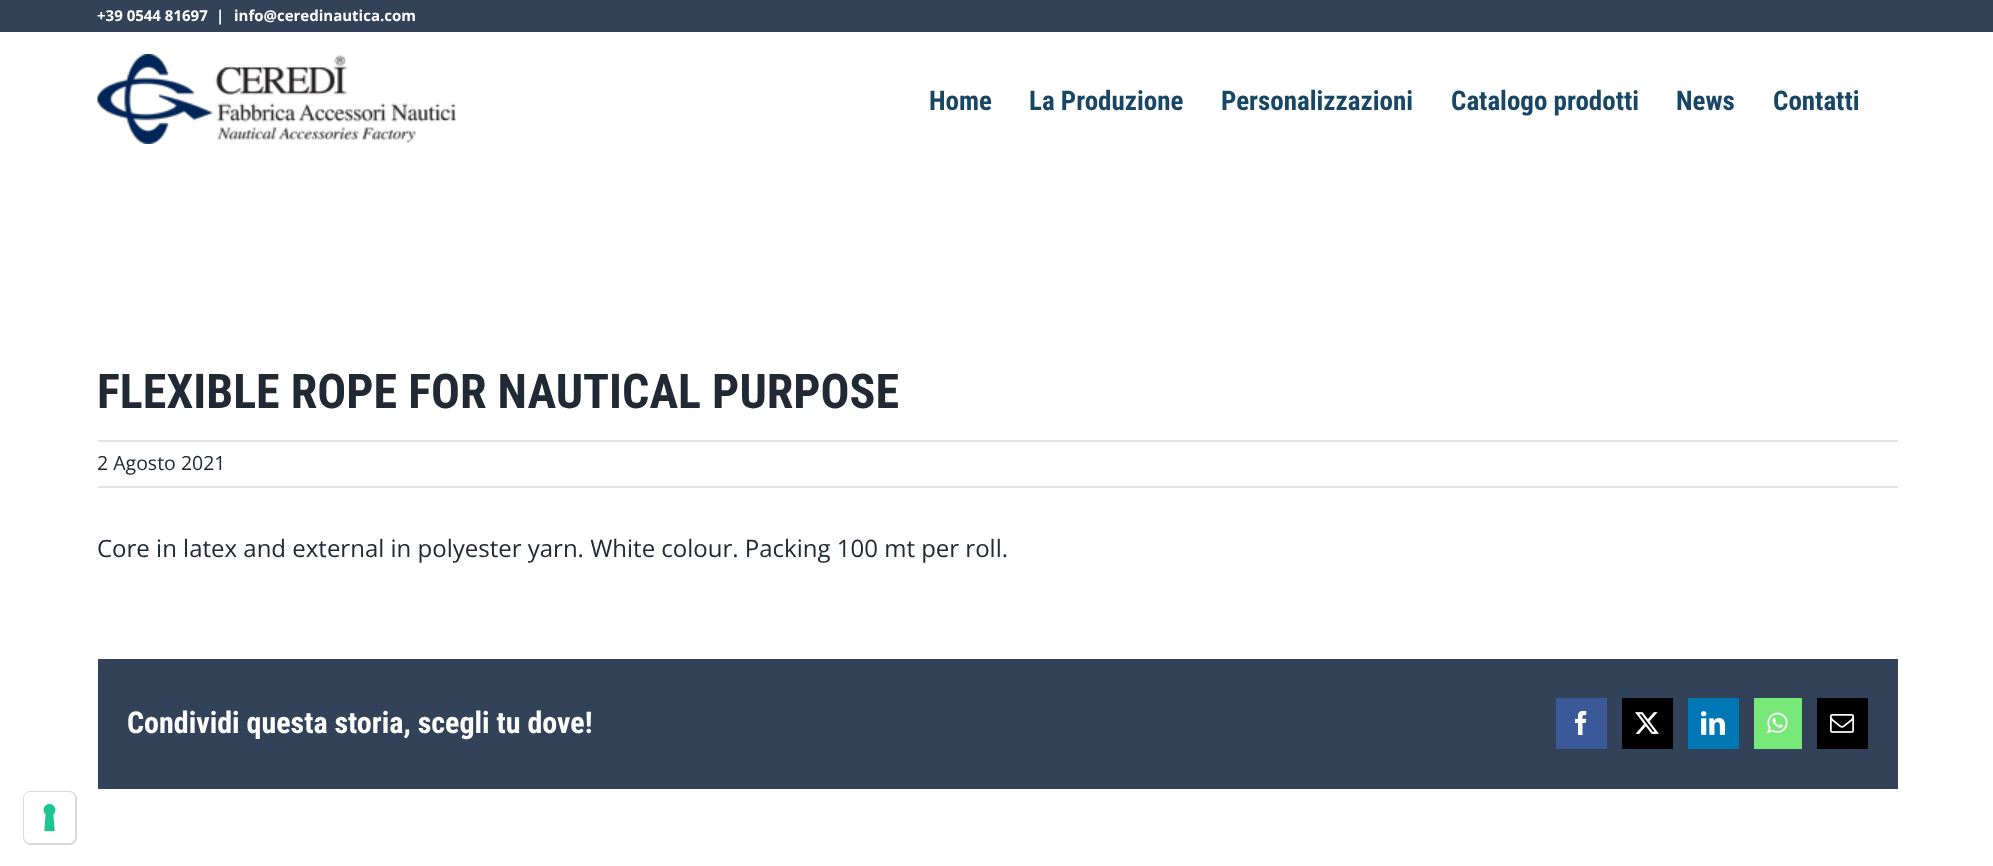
<svg xmlns="http://www.w3.org/2000/svg" width="1993" height="866" viewBox="0 0 1993 866">
  <rect width="100%" height="100%" fill="rgb(255,255,255)"/>
  <rect x="0" y="0" width="1993" height="32" fill="rgb(49,66,89)"/>
  <g font-family="Open Sans" font-size="15" font-weight="bold" fill="rgb(255,255,255)">
    <text x="97" y="21">+39 0544 81697</text>
    <text x="216" y="21">|</text>
    <text x="234" y="21">info@ceredinautica.com</text>
  </g>
  <image x="97" y="54" width="359" height="90" href="pic1.png"/>
  <g font-family="Roboto Condensed" font-size="27" font-weight="bold" fill="rgb(24,71,101)">
    <text x="929" y="110">Home</text>
    <text x="1029" y="110">La Produzione</text>
    <text x="1221" y="110">Personalizzazioni</text>
    <text x="1451" y="110">Catalogo prodotti</text>
    <text x="1676" y="110">News</text>
    <text x="1773" y="110">Contatti</text>
  </g>
  <text x="97" y="408" font-family="Roboto Condensed" font-size="48" font-weight="bold" fill="rgb(33,41,52)">FLEXIBLE ROPE FOR NAUTICAL PURPOSE</text>
  <rect x="98" y="440" width="1800" height="2" fill="rgb(226,226,226)"/>
  <rect x="98" y="486" width="1800" height="2" fill="rgb(226,226,226)"/>
  <text x="97" y="470" font-family="Open Sans" font-size="19.5" fill="rgb(33,41,52)">2 Agosto 2021</text>
  <text x="97" y="557" font-family="Open Sans" font-size="24" fill="rgb(33,41,52)">Core in latex and external in polyester yarn. White colour. Packing 100 mt per roll.</text>
  <rect x="98" y="659" width="1800" height="130" fill="rgb(49,66,89)"/>
  <text x="127" y="733" font-family="Roboto Condensed" font-size="30" font-weight="bold" fill="rgb(255,255,255)">Condividi questa storia, scegli tu dove!</text>
  <rect x="1556" y="698" width="51" height="51" fill="rgb(59,89,152)"/>
  <image x="1575" y="711" width="12" height="24" href="pic2.png"/>
  <rect x="1622" y="698" width="51" height="51" fill="rgb(0,0,0)"/>
  <image x="1635" y="712" width="24" height="22" href="pic3.png"/>
  <rect x="1688" y="698" width="51" height="51" fill="rgb(0,119,181)"/>
  <image x="1701" y="711" width="24" height="24" href="pic4.png"/>
  <rect x="1754" y="698" width="48" height="51" fill="rgb(119,232,120)"/>
  <image x="1767" y="712" width="21" height="22" href="pic5.png"/>
  <rect x="1817" y="698" width="51" height="51" fill="rgb(0,0,0)"/>
  <image x="1830" y="714" width="24" height="19" href="pic6.png"/>
  <rect x="24" y="792" width="52" height="52" rx="7" fill="none" stroke="rgb(217,217,217)" stroke-width="2"/>
  <rect x="24" y="792" width="51" height="51" rx="6" fill="rgb(255,255,255)"/>
  <image x="43" y="804" width="13" height="27" href="pic7.png"/>
</svg>
